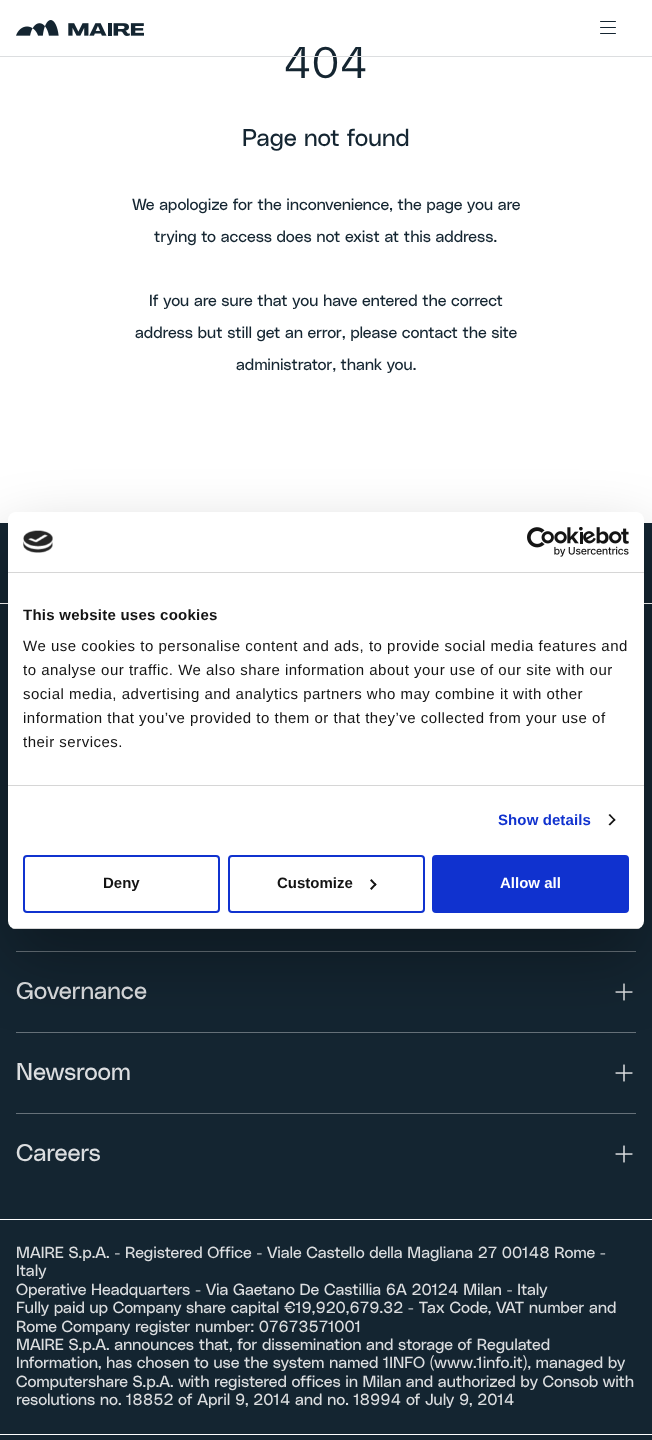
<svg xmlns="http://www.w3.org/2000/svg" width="652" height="1440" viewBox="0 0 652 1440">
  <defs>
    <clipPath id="clip1"><rect x="8" y="512" width="636" height="417" rx="8"/></clipPath>
  </defs>
  <rect width="100%" height="100%" fill="rgb(255,255,255)"/>
  <image x="16" y="20" width="128" height="16" href="pic1.png"/>
  <image x="600" y="21" width="16" height="13" href="pic2.png"/>
  <text x="283" y="78" font-family="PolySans" font-size="44" font-weight="300" fill="rgb(20,37,49)">404</text>
  <rect x="0" y="56" width="652" height="1" fill="rgb(220,222,224)"/>
  <text x="242" y="146" font-family="PolySans" font-size="24" fill="rgb(20,37,49)">Page not found</text>
  <g font-family="PolySans" font-size="16" fill="rgb(20,37,49)">
    <text x="132" y="210">We apologize for the inconvenience, the page you are</text>
    <text x="154" y="242">trying to access does not exist at this address.</text>
    <text x="149" y="306">If you are sure that you have entered the correct</text>
    <text x="135" y="338">address but still get an error, please contact the site</text>
    <text x="236" y="370">administrator, thank you.</text>
  </g>
  <rect x="0" y="523" width="652" height="917" fill="rgb(20,37,49)"/>
  <rect x="0" y="603" width="652" height="1" fill="rgb(255,255,255)"/>
  <rect x="16" y="951" width="620" height="1" fill="rgb(102,113,121)"/>
  <rect x="16" y="1032" width="620" height="1" fill="rgb(102,113,121)"/>
  <text x="16" y="999" font-family="PolySans" font-size="24" fill="rgb(220,222,224)">Governance</text>
  <image x="615" y="983" width="18" height="18" href="pic3.png"/>
  <rect x="16" y="1113" width="620" height="1" fill="rgb(102,113,121)"/>
  <text x="16" y="1080" font-family="PolySans" font-size="24" fill="rgb(220,222,224)">Newsroom</text>
  <image x="615" y="1064" width="18" height="18" href="pic3.png"/>
  <text x="16" y="1161" font-family="PolySans" font-size="24" fill="rgb(220,222,224)">Careers</text>
  <image x="615" y="1145" width="18" height="18" href="pic3.png"/>
  <rect x="0" y="1219" width="652" height="1" fill="rgb(255,255,255)"/>
  <g font-family="PolySans" font-size="16" fill="rgb(220,222,224)">
    <text>
      <tspan x="16" y="1258">MAIRE S.p.A. - Registered Office - Viale Castello della Magliana 27 00148 Rome -</tspan>
      <tspan x="16" y="1276">Italy</tspan>
      <tspan x="16" y="1295">Operative Headquarters - Via Gaetano De Castillia 6A 20124 Milan - Italy</tspan>
      <tspan x="16" y="1313">Fully paid up Company share capital €19,920,679.32 - Tax Code, VAT number and</tspan>
      <tspan x="16" y="1332">Rome Company register number: 07673571001</tspan>
      <tspan x="16" y="1350">MAIRE S.p.A. announces that, for dissemination and storage of Regulated</tspan>
      <tspan x="16" y="1368">Information, has chosen to use the system named 1INFO (www.1info.it), managed by</tspan>
      <tspan x="16" y="1387">Computershare S.p.A. with registered offices in Milan and authorized by Consob with</tspan>
      <tspan x="16" y="1405">resolutions no. 18852 of April 9, 2014 and no. 18994 of July 9, 2014</tspan>
    </text>
  </g>
  <rect x="0" y="1434" width="652" height="1" fill="rgb(255,255,255)"/>
  <rect x="8" y="544" width="636" height="417" rx="8" fill="rgba(0,0,0,0.3)" filter="blur(34px)"/>
  <rect x="8" y="512" width="636" height="417" rx="8" fill="rgb(255,255,255)"/>
  <rect x="8" y="572" width="636" height="1" fill="rgb(214,214,214)"/>
  <image x="23" y="530" width="30" height="23" href="pic4.png"/>
  <image x="527" y="527" width="102" height="30" href="pic5.png"/>
  <rect x="8" y="785" width="636" height="1" fill="rgb(214,214,214)"/>
  <text x="23" y="620" font-family="Liberation Sans" font-size="15" font-weight="bold" letter-spacing="0.25" fill="rgb(20,20,20)">This website uses cookies</text>
  <g font-family="Liberation Sans" font-size="15" letter-spacing="0.5" fill="rgb(20,20,20)">
    <text>
      <tspan x="23" y="651">We use cookies to personalise content and ads, to provide social media features and</tspan>
      <tspan x="23" y="675">to analyse our traffic. We also share information about your use of our site with our</tspan>
      <tspan x="23" y="699">social media, advertising and analytics partners who may combine it with other</tspan>
      <tspan x="23" y="723">information that you’ve provided to them or that they’ve collected from your use of</tspan>
      <tspan x="23" y="747">their services.</tspan>
    </text>
  </g>
  <text x="498" y="825" font-family="Liberation Sans" font-size="15" font-weight="bold" letter-spacing="0.1" fill="rgb(16,50,207)">Show details</text>
  <path d="M610 814L615.5 820L614.5 821L608.5 815Z" fill="rgb(20,20,20)"/>
  <path d="M614.5 818.5L615.5 820L610 825.5L608.5 824.5Z" fill="rgb(20,20,20)"/>
  <g clip-path="url(#clip1)">
    <rect x="8" y="928" width="636" height="1" fill="rgb(214,214,214)"/>
  </g>
  <rect x="24" y="856" width="195" height="56" rx="3" fill="none" stroke="rgb(16,50,207)" stroke-width="2"/>
  <text x="103" y="888" font-family="Liberation Sans" font-size="15" font-weight="bold" fill="rgb(20,20,20)">Deny</text>
  <rect x="229" y="856" width="195" height="56" rx="3" fill="none" stroke="rgb(16,50,207)" stroke-width="2"/>
  <text x="277" y="888" font-family="Liberation Sans" font-size="15" font-weight="bold" fill="rgb(20,20,20)">Customize</text>
  <path d="M371.5 879L376.5 884.5L375.5 886L370 880.5Z" fill="rgb(20,20,20)"/>
  <path d="M375.5 883L376.5 884.5L371.5 890L370 888.5Z" fill="rgb(20,20,20)"/>
  <rect x="433" y="856" width="195" height="56" rx="3" fill="rgb(16,50,207)" stroke="rgb(16,50,207)" stroke-width="2"/>
  <text x="500" y="888" font-family="Liberation Sans" font-size="15" font-weight="bold" fill="rgb(255,255,255)">Allow all</text>
</svg>
